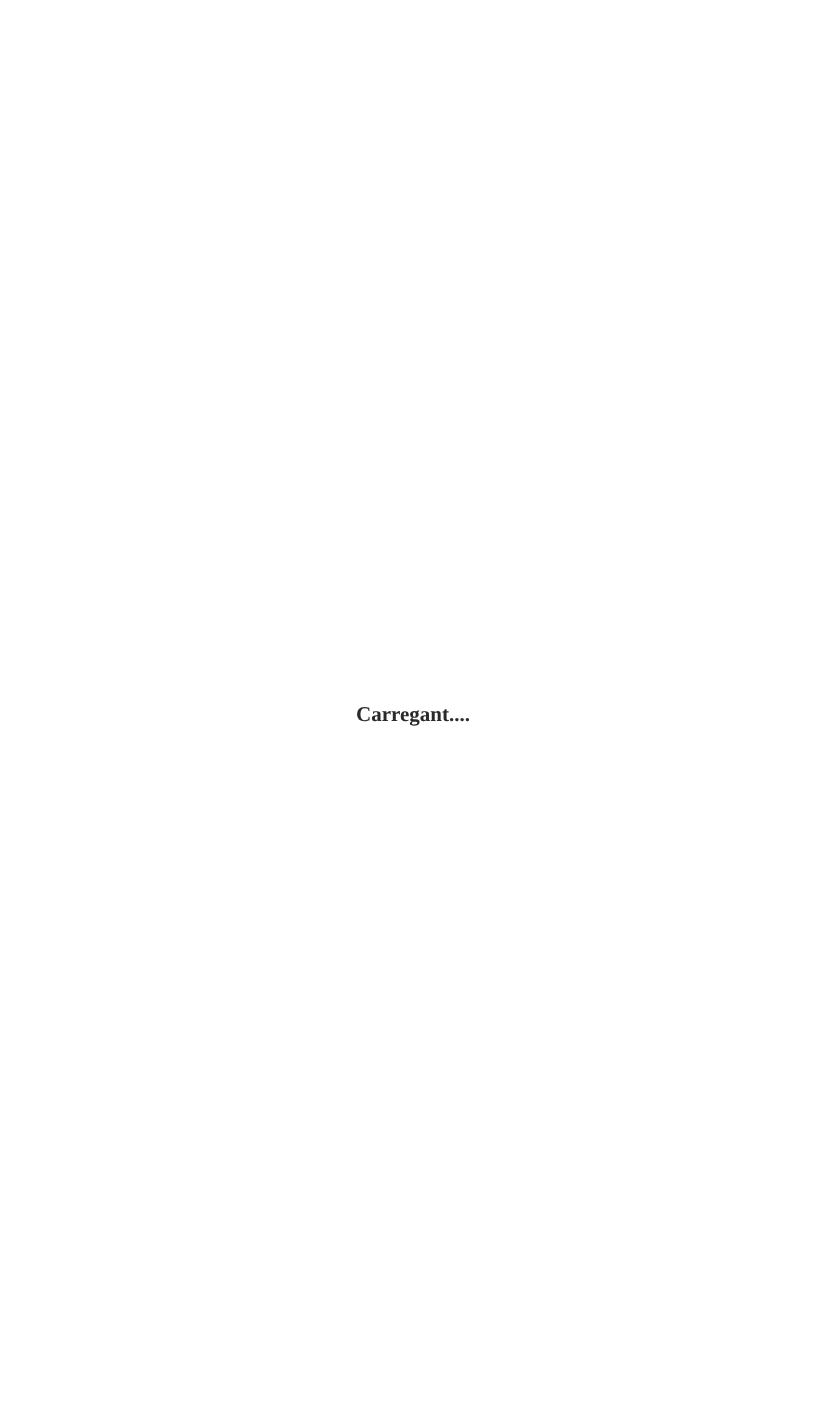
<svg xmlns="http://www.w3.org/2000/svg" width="824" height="1427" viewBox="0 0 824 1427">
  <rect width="100%" height="100%" fill="rgb(255,255,255)"/>
  <text x="356" y="721" font-family="Liberation Serif" font-size="21" font-weight="bold" fill="rgb(42,42,42)">Carregant....</text>
</svg>
